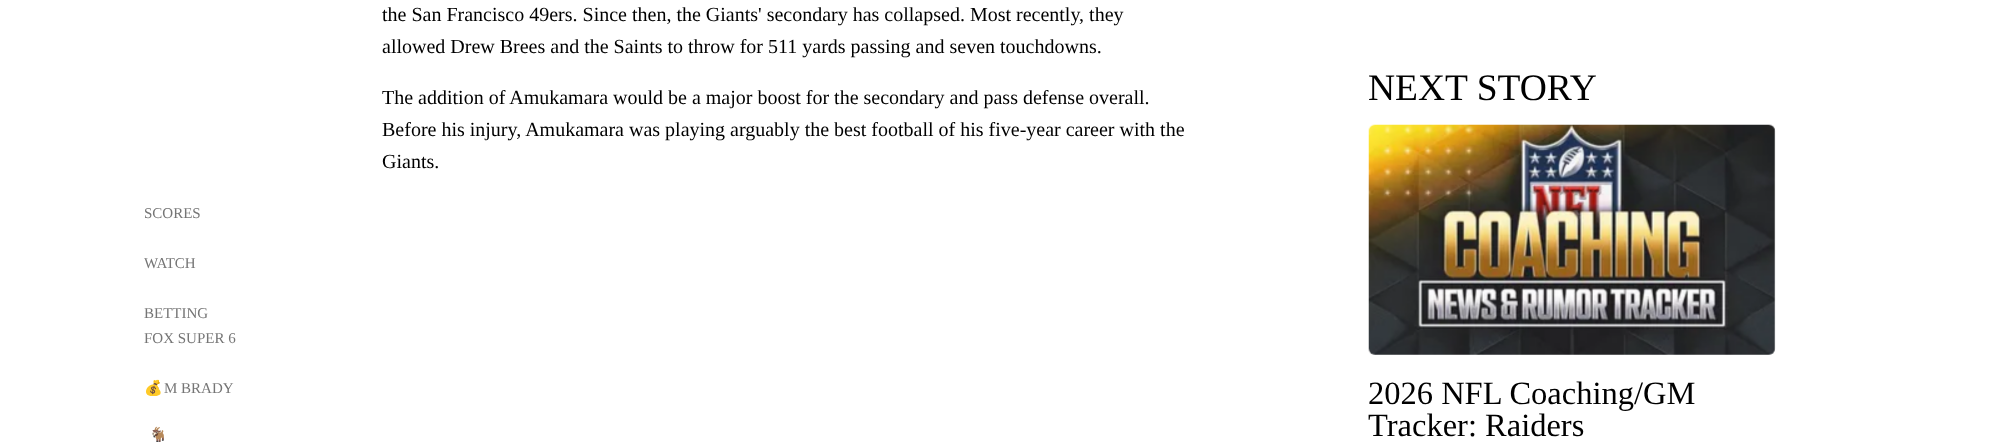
<svg xmlns="http://www.w3.org/2000/svg" width="1993" height="442" viewBox="0 0 1993 442">
  <rect width="100%" height="100%" fill="rgb(255,255,255)"/>
  <g font-family="Liberation Serif" font-size="15" fill="rgb(117,117,117)">
    <text x="144" y="218">SCORES</text>
    <text x="144" y="268">WATCH</text>
    <text>
      <tspan x="144" y="318">BETTING</tspan>
      <tspan x="144" y="343">FOX SUPER 6</tspan>
    </text>
  </g>
  <text x="144" y="393" font-family="Noto Color Emoji" font-size="15" fill="rgb(117,117,117)">💰</text>
  <text x="164" y="393" font-family="Liberation Serif" font-size="15" fill="rgb(117,117,117)">M BRADY</text>
  <text x="149" y="440" font-family="Noto Color Emoji" font-size="15" fill="rgb(0,0,0)">🐐</text>
  <g font-family="Liberation Serif" font-size="20" fill="rgb(0,0,0)">
    <text>
      <tspan x="382" y="21">the San Francisco 49ers. Since then, the Giants' secondary has collapsed. Most recently, they</tspan>
      <tspan x="382" y="53">allowed Drew Brees and the Saints to throw for 511 yards passing and seven touchdowns.</tspan>
    </text>
    <text>
      <tspan x="382" y="104">The addition of Amukamara would be a major boost for the secondary and pass defense overall.</tspan>
      <tspan x="382" y="136">Before his injury, Amukamara was playing arguably the best football of his five-year career with the</tspan>
      <tspan x="382" y="168">Giants.</tspan>
    </text>
  </g>
  <text x="1368" y="100" font-family="Liberation Serif" font-size="37.5" fill="rgb(0,0,0)">NEXT STORY</text>
  <image x="1368" y="124" width="408" height="231" href="pic1.png"/>
  <g font-family="Liberation Serif" font-size="32.5" fill="rgb(0,0,0)">
    <text>
      <tspan x="1368" y="404">2026 NFL Coaching/GM</tspan>
      <tspan x="1368" y="436">Tracker: Raiders</tspan>
    </text>
  </g>
</svg>
